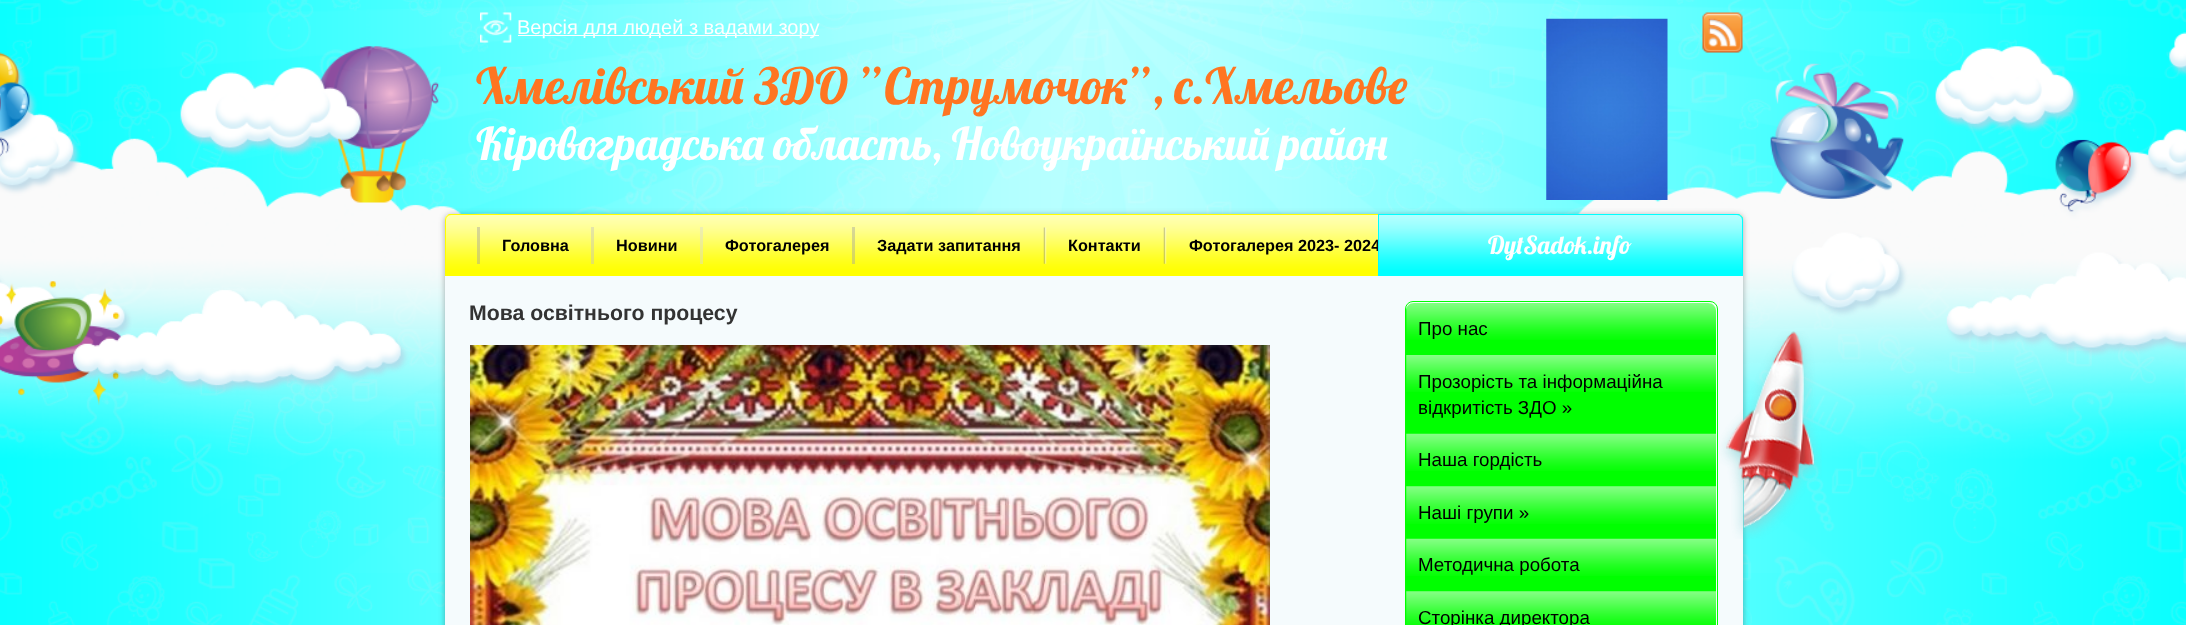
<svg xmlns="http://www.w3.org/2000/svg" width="2186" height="625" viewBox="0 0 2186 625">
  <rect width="100%" height="100%" fill="rgb(0,255,255)"/>
  <image x="0" y="0" width="2186" height="625" href="pic1.png"/>
  <image x="0" y="0" width="2186" height="573" href="pic2.png"/>
  <image x="480" y="12" width="32" height="31" href="pic3.png"/>
  <rect x="518" y="35" width="301" height="1" fill="rgb(255,255,255)"/>
  <text x="517" y="34" font-family="Liberation Sans" font-size="20" fill="rgb(255,255,255)">Версія для людей з вадами зору</text>
  <image x="1546" y="18" width="122" height="182" href="pic4.png"/>
  <image x="1702" y="12" width="41" height="41" href="pic5.png"/>
  <text x="476" y="104" font-family="'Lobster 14'" font-size="50" fill="rgb(255,117,33)">Хмелівський ЗДО ”Струмочок”, с.Хмельове</text>
  <text x="476" y="160" font-family="'Lobster 14'" font-size="45" fill="rgb(255,255,255)">Кіровоградська область, Новоукраїнський район</text>
  <rect x="445" y="215" width="1298" height="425" rx="6" fill="rgba(50,50,50,0.4)" filter="blur(3px)"/>
  <rect x="445" y="214" width="1298" height="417" rx="6" fill="rgb(245,251,253)"/>
  <path d="M451 214H1737C1740.5 214 1743 216.5 1743 220V276H445V220C445 216.5 447.5 214 451 214Z" fill="rgb(255,255,0)"/>
  <image x="445" y="215" width="1298" height="55" href="pic6.png"/>
  <path d="M451 214.5H1737C1740 214.5 1742.5 217 1742.5 220V275.5H445.5V220C445.5 217 448 214.5 451 214.5Z" fill="none" stroke="rgb(255,255,0)"/>
  <rect x="477" y="227" width="3" height="37" fill="rgba(162,162,162,0.44)"/>
  <text x="502" y="251" font-family="Liberation Sans" font-size="16.25" font-weight="bold" fill="rgb(0,0,0)">Головна</text>
  <rect x="591" y="227" width="3" height="37" fill="rgba(194,194,194,0.44)"/>
  <text x="616" y="251" font-family="Liberation Sans" font-size="16.25" font-weight="bold" fill="rgb(0,0,0)">Новини</text>
  <rect x="700" y="227" width="3" height="37" fill="rgba(216,216,216,0.44)"/>
  <text x="725" y="251" font-family="Liberation Sans" font-size="16.25" font-weight="bold" fill="rgb(0,0,0)">Фотогалерея</text>
  <rect x="852" y="227" width="3" height="37" fill="rgba(162,162,162,0.44)"/>
  <text x="877" y="251" font-family="Liberation Sans" font-size="16.25" font-weight="bold" fill="rgb(0,0,0)">Задати запитання</text>
  <image x="1043" y="227" width="4" height="37" href="pic7.png"/>
  <text x="1068" y="251" font-family="Liberation Sans" font-size="16.25" font-weight="bold" fill="rgb(0,0,0)">Контакти</text>
  <image x="1163" y="227" width="4" height="37" href="pic7.png"/>
  <text x="1189" y="251" font-family="Liberation Sans" font-size="16.25" font-weight="bold" fill="rgb(0,0,0)">Фотогалерея 2023- 2024</text>
  <path d="M1378 214H1737C1740.5 214 1743 216.5 1743 220V276H1378Z" fill="rgb(0,255,255)"/>
  <image x="1377" y="215" width="366" height="55" href="pic8.png"/>
  <path d="M1378.5 214.5H1737C1740 214.5 1742.5 217 1742.5 220V275.5H1378.5Z" fill="none" stroke="rgb(0,255,255)"/>
  <text x="1488" y="254" font-family="'Lobster 14'" font-size="25" fill="rgb(255,255,255)">DytSadok.info</text>
  <text x="469" y="320" font-family="Liberation Sans" font-size="21.25" font-weight="bold" fill="rgb(51,51,51)">Мова освітнього процесу</text>
  <image x="470" y="345" width="800" height="280" href="pic9.png"/>
  <rect x="1405.5" y="301.5" width="312" height="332" rx="7.5" fill="none" stroke="rgb(0,255,0)"/>
  <path d="M1414 303H1708C1712.5 303 1716 306.5 1716 311V355H1406V311C1406 306.5 1409.5 303 1414 303Z" fill="rgb(0,255,0)"/>
  <image x="1406" y="303" width="310" height="37" href="pic10.png"/>
  <text x="1418" y="335" font-family="Liberation Sans" font-size="18.75" fill="rgb(0,0,0)">Про нас</text>
  <rect x="1406" y="355" width="310" height="270" fill="rgb(0,255,0)"/>
  <image x="1406" y="355" width="310" height="37" href="pic11.png"/>
  <g font-family="Liberation Sans" font-size="18.75" fill="rgb(0,0,0)">
    <text>
      <tspan x="1418" y="388">Прозорість та інформаційна</tspan>
      <tspan x="1418" y="414">відкритість ЗДО »</tspan>
    </text>
  </g>
  <image x="1406" y="433" width="310" height="38" href="pic12.png"/>
  <text x="1418" y="466" font-family="Liberation Sans" font-size="18.75" fill="rgb(0,0,0)">Наша гордість</text>
  <image x="1406" y="486" width="310" height="38" href="pic13.png"/>
  <text x="1418" y="519" font-family="Liberation Sans" font-size="18.75" fill="rgb(0,0,0)">Наші групи »</text>
  <image x="1406" y="538" width="310" height="38" href="pic12.png"/>
  <text x="1418" y="571" font-family="Liberation Sans" font-size="18.75" fill="rgb(0,0,0)">Методична робота</text>
  <image x="1406" y="591" width="310" height="34" href="pic14.png"/>
  <text x="1418" y="624" font-family="Liberation Sans" font-size="18.75" fill="rgb(0,0,0)">Сторінка директора</text>
  <image x="1719" y="331" width="103" height="208" href="pic15.png"/>
</svg>
